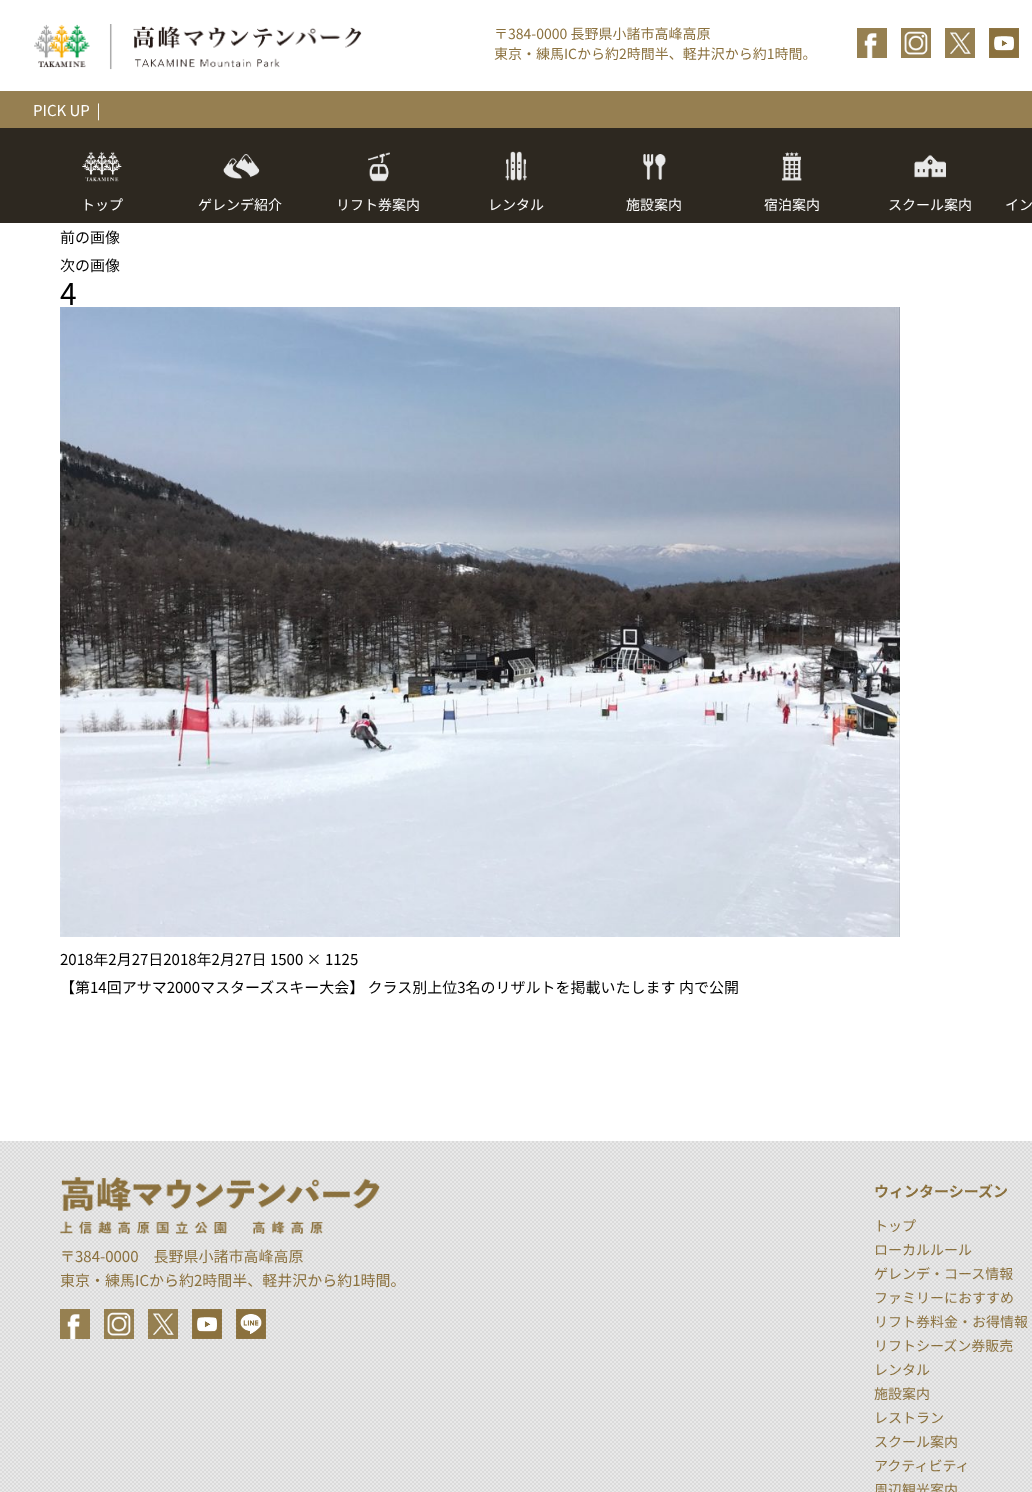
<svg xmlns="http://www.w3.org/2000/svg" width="1032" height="1492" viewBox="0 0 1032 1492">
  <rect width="100%" height="100%" fill="rgb(255,255,255)"/>
  <image x="34" y="24" width="328" height="46" href="pic1.png"/>
  <g font-family="Noto Sans JP" font-size="14" fill="rgb(139,113,62)">
    <text>
      <tspan x="494" y="39">〒384-0000 長野県小諸市高峰高原</tspan>
      <tspan x="494" y="59">東京・練馬ICから約2時間半、軽井沢から約1時間。</tspan>
    </text>
  </g>
  <image x="857" y="28" width="30" height="30" href="pic2.png"/>
  <image x="901" y="28" width="30" height="30" href="pic3.png"/>
  <image x="945" y="28" width="30" height="30" href="pic4.png"/>
  <image x="989" y="28" width="30" height="30" href="pic5.png"/>
  <rect x="0" y="91" width="1032" height="37" fill="rgb(150,127,81)"/>
  <text x="33" y="116" font-family="Noto Sans JP" font-size="15" fill="rgb(255,255,255)" xml:space="preserve">PICK UP  |</text>
  <rect x="0" y="128" width="1032" height="95" fill="rgb(45,40,32)"/>
  <image x="82" y="151" width="40" height="31" href="pic6.png"/>
  <text x="81" y="210" font-family="Noto Sans JP" font-size="14" fill="rgb(255,255,255)">トップ</text>
  <image x="223" y="154" width="37" height="25" href="pic7.png"/>
  <text x="198" y="210" font-family="Noto Sans JP" font-size="14" fill="rgb(255,255,255)">ゲレンデ紹介</text>
  <image x="368" y="152" width="22" height="30" href="pic8.png"/>
  <text x="336" y="210" font-family="Noto Sans JP" font-size="14" fill="rgb(255,255,255)">リフト券案内</text>
  <image x="505" y="151" width="22" height="30" href="pic9.png"/>
  <text x="488" y="210" font-family="Noto Sans JP" font-size="14" fill="rgb(255,255,255)">レンタル</text>
  <image x="643" y="154" width="23" height="26" href="pic10.png"/>
  <text x="626" y="210" font-family="Noto Sans JP" font-size="14" fill="rgb(255,255,255)">施設案内</text>
  <image x="782" y="152" width="20" height="29" href="pic11.png"/>
  <text x="764" y="210" font-family="Noto Sans JP" font-size="14" fill="rgb(255,255,255)">宿泊案内</text>
  <image x="914" y="154" width="32" height="24" href="pic12.png"/>
  <g font-family="Noto Sans JP" font-size="14" fill="rgb(255,255,255)">
    <text x="888" y="210">スクール案内</text>
    <text x="1005" y="210">イン</text>
  </g>
  <g font-family="Noto Sans JP" font-size="15" fill="rgb(0,0,0)">
    <text>
      <tspan x="60" y="243">前の画像</tspan>
      <tspan x="60" y="271">次の画像</tspan>
    </text>
  </g>
  <text x="60" y="305" font-family="Noto Sans JP" font-size="30" fill="rgb(0,0,0)">4</text>
  <image x="60" y="307" width="840" height="630" href="pic13.png"/>
  <g font-family="Noto Sans JP" font-size="15" fill="rgb(0,0,0)">
    <text>
      <tspan x="60" y="965">2018年2月27日2018年2月27日 1500 × 1125</tspan>
      <tspan x="60" y="993">【第14回アサマ2000マスターズスキー大会】 クラス別上位3名のリザルトを掲載いたします 内で公開</tspan>
    </text>
  </g>
  <image x="0" y="1141" width="1032" height="351" href="pic14.png"/>
  <image x="60" y="1177" width="320" height="57" href="pic15.png"/>
  <g font-family="Noto Sans JP" font-size="15" fill="rgb(139,113,62)">
    <text>
      <tspan x="60" y="1262">〒384-0000　長野県小諸市高峰高原</tspan>
      <tspan x="60" y="1286">東京・練馬ICから約2時間半、軽井沢から約1時間。</tspan>
    </text>
  </g>
  <image x="60" y="1309" width="30" height="30" href="pic2.png"/>
  <image x="104" y="1309" width="30" height="30" href="pic16.png"/>
  <image x="148" y="1309" width="30" height="30" href="pic17.png"/>
  <image x="192" y="1309" width="30" height="30" href="pic5.png"/>
  <image x="236" y="1309" width="30" height="30" href="pic18.png"/>
  <text x="874" y="1197" font-family="Noto Sans JP" font-size="15" font-weight="bold" fill="rgb(139,113,62)">ウィンターシーズン</text>
  <g font-family="Noto Sans JP" font-size="14" fill="rgb(139,113,62)">
    <text>
      <tspan x="874" y="1231">トップ</tspan>
      <tspan x="874" y="1255">ローカルルール</tspan>
      <tspan x="874" y="1279">ゲレンデ・コース情報</tspan>
      <tspan x="874" y="1303">ファミリーにおすすめ</tspan>
      <tspan x="874" y="1327">リフト券料金・お得情報</tspan>
      <tspan x="874" y="1351">リフトシーズン券販売</tspan>
      <tspan x="874" y="1375">レンタル</tspan>
      <tspan x="874" y="1399">施設案内</tspan>
      <tspan x="874" y="1423">レストラン</tspan>
      <tspan x="874" y="1447">スクール案内</tspan>
      <tspan x="874" y="1471">アクティビティ</tspan>
      <tspan x="874" y="1495">周辺観光案内</tspan>
    </text>
  </g>
</svg>
